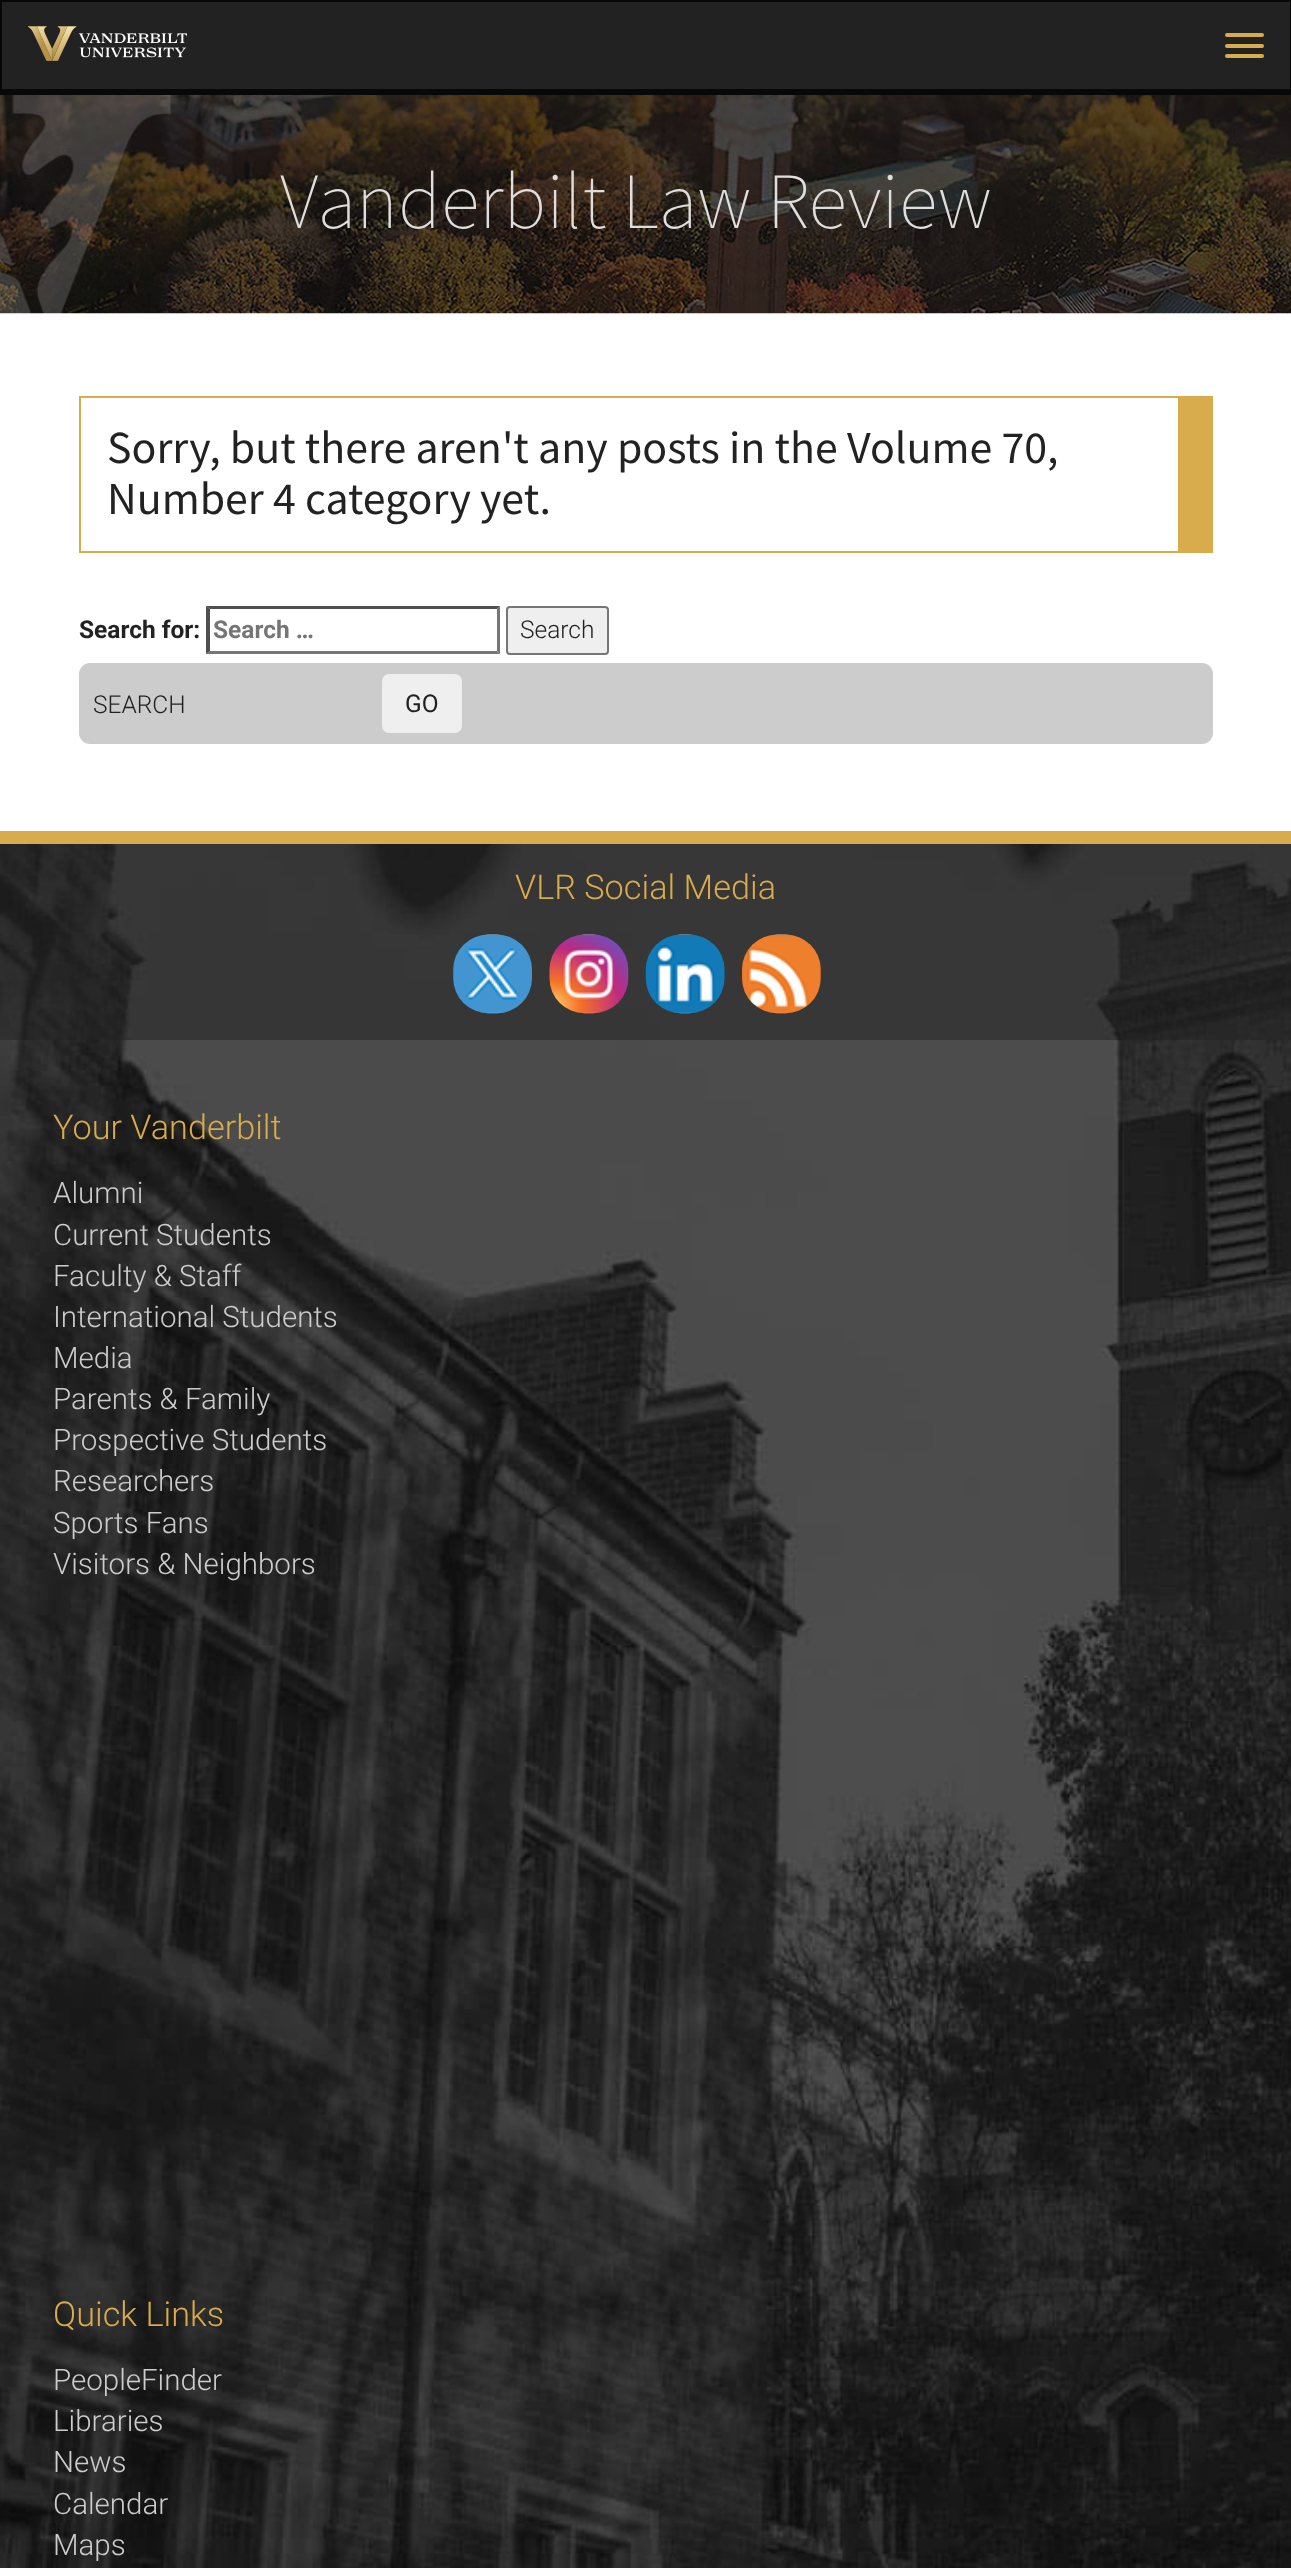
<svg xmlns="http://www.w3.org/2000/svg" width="1291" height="2568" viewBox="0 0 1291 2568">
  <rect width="100%" height="100%" fill="rgb(255,255,255)"/>
  <rect x="1" y="1" width="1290" height="89" fill="rgb(34,34,34)" stroke="rgb(8,8,8)" stroke-width="2"/>
  <image x="28" y="26" width="159" height="35" href="pic1.png"/>
  <rect x="1225" y="33" width="39" height="4" rx="2" fill="rgb(216,171,76)"/>
  <rect x="1225" y="44" width="39" height="4" rx="2" fill="rgb(216,171,76)"/>
  <rect x="1225" y="54" width="39" height="4" rx="2" fill="rgb(216,171,76)"/>
  <rect x="0" y="91" width="1291" height="4" fill="rgb(8,8,8)"/>
  <image x="0" y="95" width="1291" height="219" href="pic2.png"/>
  <text x="280" y="228" font-family="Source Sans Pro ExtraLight" font-size="79.6" font-weight="200" fill="rgb(223,222,221)">Vanderbilt Law Review</text>
  <rect x="79" y="396" width="1099" height="2" fill="rgb(216,171,76)"/>
  <rect x="1178" y="396" width="35" height="155" fill="rgb(216,171,76)"/>
  <rect x="79" y="551" width="1134" height="2" fill="rgb(216,171,76)"/>
  <rect x="79" y="396" width="2" height="157" fill="rgb(216,171,76)"/>
  <g font-family="Source Sans Pro" font-size="45.9" fill="rgb(34,34,34)">
    <text>
      <tspan x="107" y="463">Sorry, but there aren't any posts in the Volume 70,</tspan>
      <tspan x="107" y="514">Number 4 category yet.</tspan>
    </text>
  </g>
  <text x="79" y="638" font-family="Roboto" font-size="24.5" font-weight="bold" fill="rgb(34,34,34)">Search for:</text>
  <path d="M206 606H500L497 609H210Z" fill="rgb(79,79,79)"/>
  <path d="M500 606V654L497 651V609Z" fill="rgb(118,118,118)"/>
  <path d="M500 654H206L210 651H497Z" fill="rgb(118,118,118)"/>
  <path d="M206 654V606L210 609V651Z" fill="rgb(79,79,79)"/>
  <text x="213" y="638" font-family="Roboto" font-size="24.5" font-weight="bold" fill="rgb(117,117,117)">Search …</text>
  <rect x="507" y="607" width="101" height="47" rx="3" fill="rgb(239,239,239)" stroke="rgb(118,118,118)" stroke-width="2"/>
  <text x="520" y="638" font-family="Roboto" font-size="24.5" font-weight="300" fill="rgb(34,34,34)">Search</text>
  <rect x="79" y="663" width="1134" height="81" rx="11" fill="rgb(204,204,204)"/>
  <text x="93" y="713" font-family="Roboto" font-size="24.5" font-weight="300" fill="rgb(34,34,34)">SEARCH</text>
  <rect x="382" y="674" width="80" height="59" rx="7" fill="rgb(239,239,239)"/>
  <text x="405" y="712" font-family="Roboto" font-size="24.5" fill="rgb(34,34,34)">GO</text>
  <image x="0" y="844" width="1291" height="1724" href="pic3.png"/>
  <rect x="0" y="831" width="1291" height="13" fill="rgb(216,171,76)"/>
  <rect x="0" y="844" width="1291" height="196" fill="rgba(34,34,34,0.5)"/>
  <text x="515" y="899" font-family="Roboto" font-size="34.25" font-weight="300" fill="rgb(216,171,76)">VLR Social Media</text>
  <image x="453" y="934" width="79" height="80" href="pic4.png"/>
  <image x="549" y="934" width="80" height="80" href="pic5.png"/>
  <image x="645" y="934" width="80" height="80" href="pic6.png"/>
  <image x="741" y="934" width="80" height="80" href="pic7.png"/>
  <text x="53" y="1139" font-family="Roboto" font-size="34.25" font-weight="300" fill="rgb(216,171,76)">Your Vanderbilt</text>
  <g font-family="Roboto" font-size="29.5" font-weight="300" fill="rgb(204,204,204)">
    <text>
      <tspan x="53" y="1203">Alumni</tspan>
      <tspan x="53" y="1245">Current Students</tspan>
      <tspan x="53" y="1286">Faculty &amp; Staff</tspan>
      <tspan x="53" y="1327">International Students</tspan>
      <tspan x="53" y="1368">Media</tspan>
      <tspan x="53" y="1409">Parents &amp; Family</tspan>
      <tspan x="53" y="1450">Prospective Students</tspan>
      <tspan x="53" y="1491">Researchers</tspan>
      <tspan x="53" y="1533">Sports Fans</tspan>
      <tspan x="53" y="1574">Visitors &amp; Neighbors</tspan>
    </text>
  </g>
  <text x="53" y="2326" font-family="Roboto" font-size="34.25" font-weight="300" fill="rgb(216,171,76)">Quick Links</text>
  <g font-family="Roboto" font-size="29.5" font-weight="300" fill="rgb(204,204,204)">
    <text>
      <tspan x="53" y="2390">PeopleFinder</tspan>
      <tspan x="53" y="2431">Libraries</tspan>
      <tspan x="53" y="2472">News</tspan>
      <tspan x="53" y="2514">Calendar</tspan>
      <tspan x="53" y="2555">Maps</tspan>
    </text>
  </g>
</svg>
